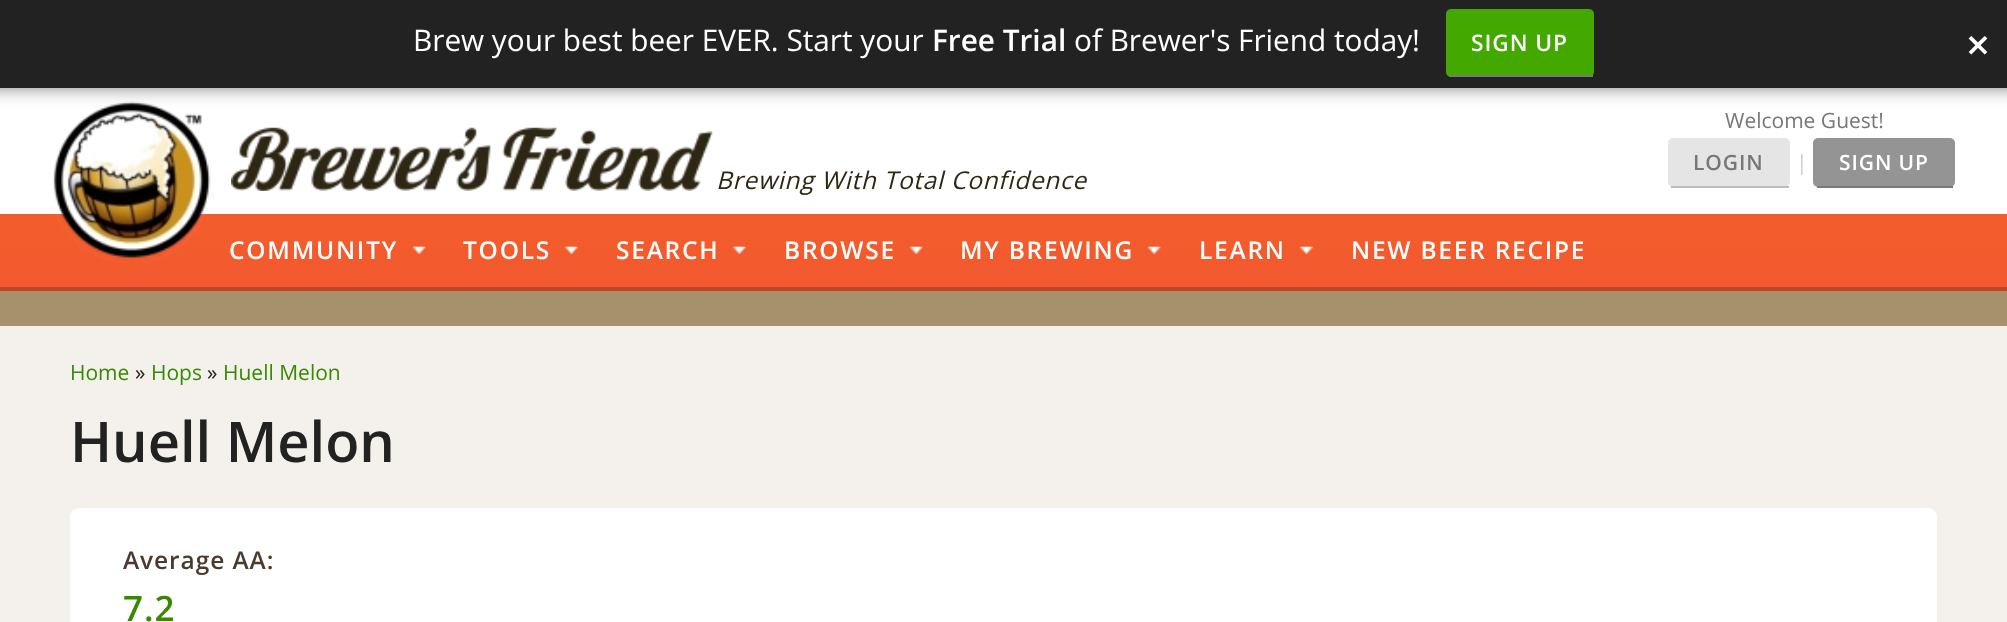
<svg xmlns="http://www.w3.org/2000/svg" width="2007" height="622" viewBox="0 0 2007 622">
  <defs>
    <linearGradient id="g1" gradientUnits="userSpaceOnUse" x1="1004" y1="213" x2="1004" y2="287"><stop offset="0" stop-color="rgb(243,93,42)"/><stop offset="1" stop-color="rgb(242,89,48)"/></linearGradient>
  </defs>
  <rect width="100%" height="100%" fill="rgb(244,241,236)"/>
  <rect x="0" y="88" width="2007" height="126" fill="rgb(255,255,255)"/>
  <rect x="0" y="214" width="2007" height="73" fill="url(#g1)"/>
  <image x="53" y="101" width="161" height="162" href="pic1.png"/>
  <rect x="-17" y="-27" width="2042" height="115" fill="rgba(0,0,0,0.5)" filter="blur(9px)"/>
  <rect x="0" y="0" width="2007" height="88" fill="rgb(34,34,34)"/>
  <text x="413" y="51" font-family="Open Sans" font-size="29.75" fill="rgb(255,255,255)">Brew your best beer EVER. Start your</text>
  <text x="932" y="51" font-family="Open Sans" font-size="29.75" font-weight="600" fill="rgb(255,255,255)">Free Trial</text>
  <text x="1074" y="51" font-family="Open Sans" font-size="29.75" fill="rgb(255,255,255)">of Brewer's Friend today!</text>
  <rect x="1446" y="9" width="148" height="68" rx="5" fill="rgb(67,168,0)"/>
  <rect x="1449" y="75" width="144" height="2" fill="rgb(121,121,121)"/>
  <text x="1471" y="51" font-family="Open Sans" font-size="22.75" font-weight="600" letter-spacing="0.9" fill="rgb(255,255,255)">SIGN UP</text>
  <text x="1966" y="60" font-family="Open Sans" font-size="42" font-weight="600" fill="rgb(255,255,255)">×</text>
  <text x="1725" y="128" font-family="Open Sans" font-size="21" fill="rgb(119,119,119)">Welcome Guest!</text>
  <rect x="1668" y="138" width="122" height="49" rx="5" fill="rgb(229,229,229)"/>
  <rect x="1671" y="186" width="118" height="2" fill="rgb(188,188,188)"/>
  <text x="1693" y="170" font-family="Open Sans" font-size="21" font-weight="600" letter-spacing="0.9" fill="rgb(119,119,119)">LOGIN</text>
  <text x="1796" y="170" font-family="Open Sans" font-size="21" fill="rgb(203,203,203)">|</text>
  <rect x="1813" y="138" width="142" height="49" rx="5" fill="rgb(148,148,148)"/>
  <rect x="1817" y="186" width="136" height="2" fill="rgb(121,121,121)"/>
  <text x="1839" y="170" font-family="Open Sans" font-size="21" font-weight="600" letter-spacing="0.9" fill="rgb(255,255,255)">SIGN UP</text>
  <image x="231" y="127" width="482" height="64" href="pic2.png"/>
  <text x="716" y="189" font-family="Open Sans" font-size="24.5" font-style="italic" letter-spacing="0.7" fill="rgb(46,39,20)">Brewing With Total Confidence</text>
  <rect x="0" y="287" width="2007" height="4" fill="rgb(191,70,38)"/>
  <image x="413" y="246" width="13" height="8" href="pic3.png"/>
  <text x="229" y="259" font-family="Open Sans" font-size="24.5" font-weight="600" letter-spacing="1.75" fill="rgb(255,255,255)">COMMUNITY</text>
  <image x="565" y="246" width="13" height="8" href="pic4.png"/>
  <text x="463" y="259" font-family="Open Sans" font-size="24.5" font-weight="600" letter-spacing="1.75" fill="rgb(255,255,255)">TOOLS</text>
  <image x="733" y="246" width="13" height="8" href="pic5.png"/>
  <text x="616" y="259" font-family="Open Sans" font-size="24.5" font-weight="600" letter-spacing="1.75" fill="rgb(255,255,255)">SEARCH</text>
  <image x="910" y="246" width="13" height="8" href="pic3.png"/>
  <text x="784" y="259" font-family="Open Sans" font-size="24.5" font-weight="600" letter-spacing="1.75" fill="rgb(255,255,255)">BROWSE</text>
  <image x="1148" y="246" width="13" height="8" href="pic3.png"/>
  <text x="960" y="259" font-family="Open Sans" font-size="24.5" font-weight="600" letter-spacing="1.75" fill="rgb(255,255,255)">MY BREWING</text>
  <image x="1300" y="246" width="13" height="8" href="pic5.png"/>
  <g font-family="Open Sans" font-size="24.5" font-weight="600" letter-spacing="1.75" fill="rgb(255,255,255)">
    <text x="1199" y="259">LEARN</text>
    <text x="1351" y="259">NEW BEER RECIPE</text>
  </g>
  <rect x="0" y="291" width="2007" height="35" fill="rgb(167,145,109)"/>
  <text x="70" y="380" font-family="Open Sans" font-size="21" fill="rgb(55,138,0)">Home</text>
  <text x="135" y="380" font-family="Open Sans" font-size="21" fill="rgb(34,34,34)">»</text>
  <text x="151" y="380" font-family="Open Sans" font-size="21" fill="rgb(55,138,0)">Hops</text>
  <text x="207" y="380" font-family="Open Sans" font-size="21" fill="rgb(34,34,34)">»</text>
  <text x="223" y="380" font-family="Open Sans" font-size="21" fill="rgb(55,138,0)">Huell Melon</text>
  <text x="70" y="462" font-family="Open Sans" font-size="56" font-weight="600" fill="rgb(34,34,34)">Huell Melon</text>
  <rect x="70" y="508" width="1867" height="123" rx="9" fill="rgb(255,255,255)"/>
  <text x="123" y="569" font-family="Open Sans" font-size="24.5" font-weight="600" letter-spacing="0.9" fill="rgb(75,59,44)">Average AA:</text>
  <text x="123" y="621" font-family="Open Sans" font-size="35" font-weight="600" letter-spacing="0.9" fill="rgb(55,138,0)">7.2</text>
</svg>
